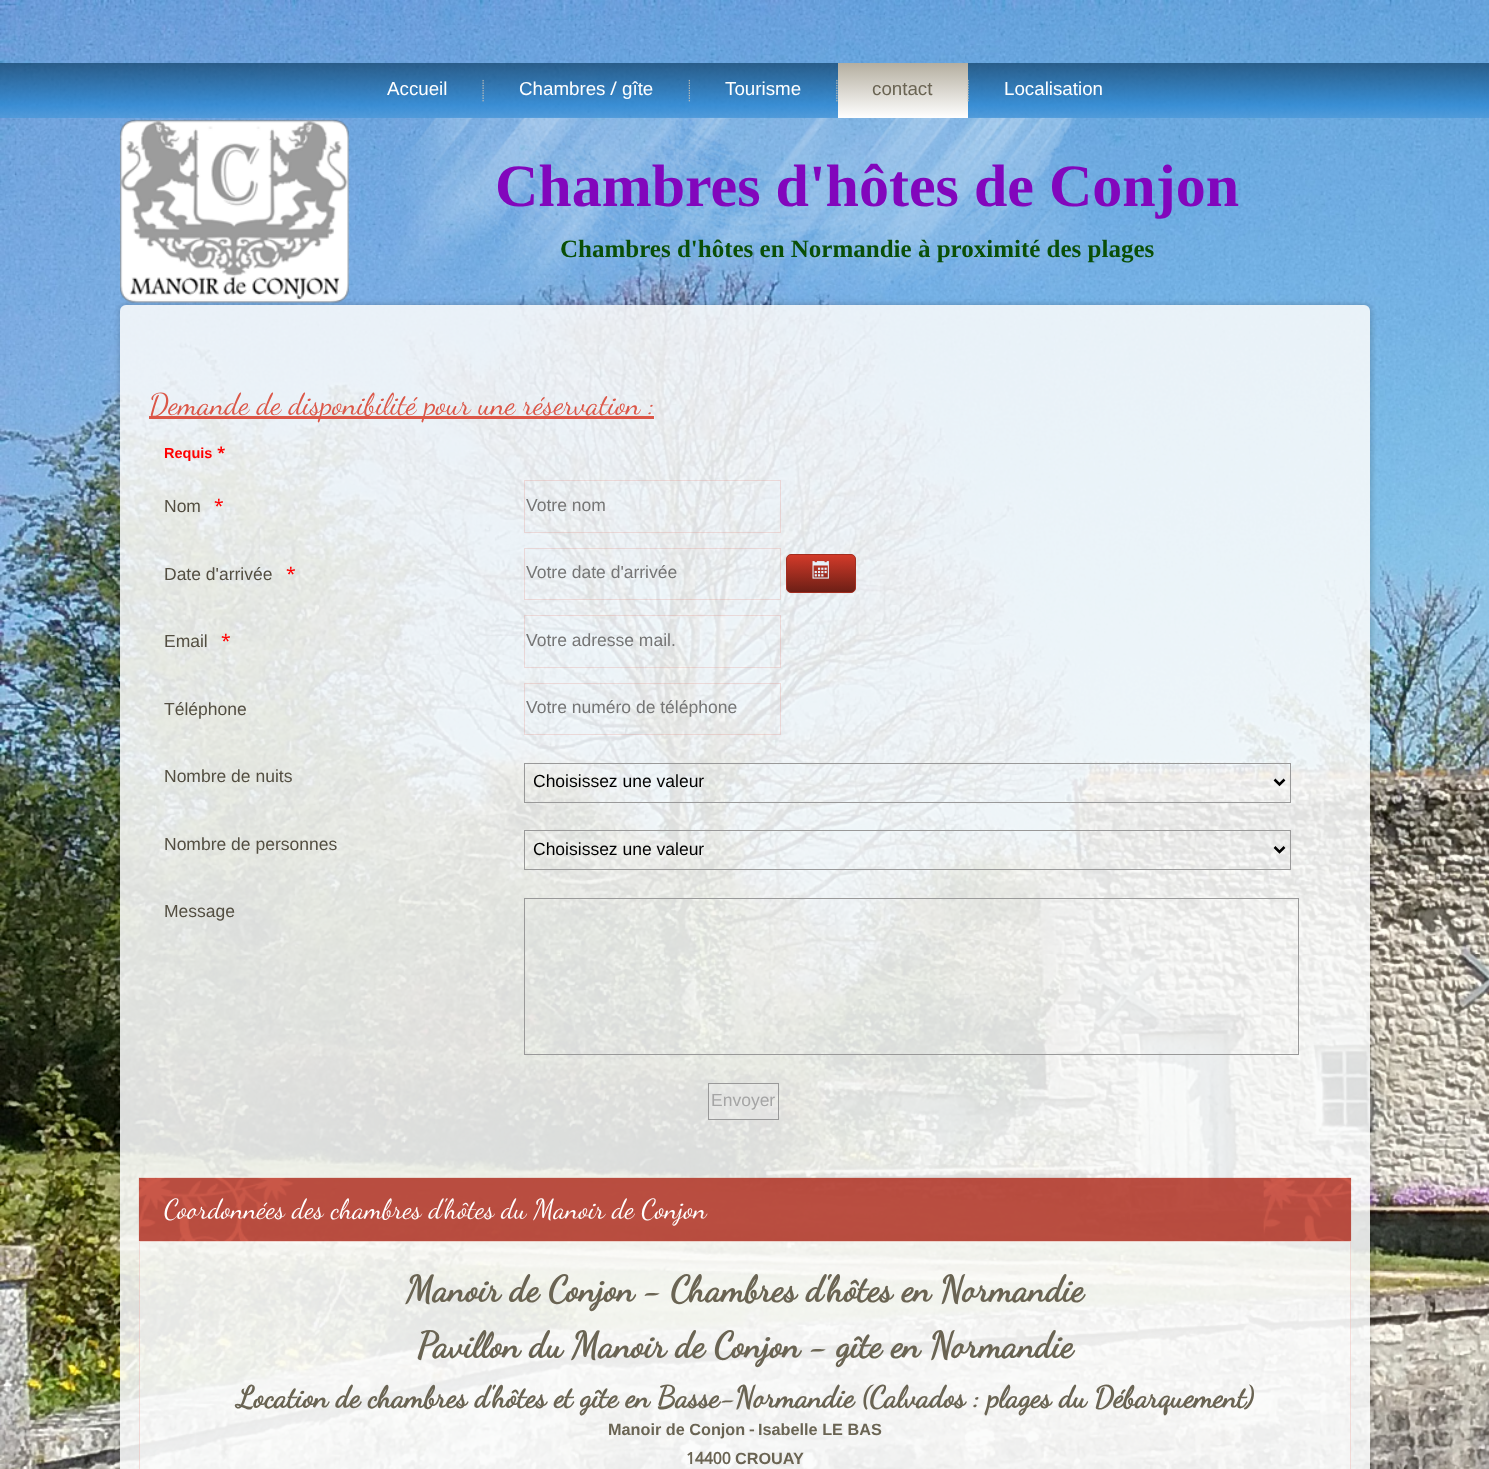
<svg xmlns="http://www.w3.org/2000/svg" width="1489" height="1469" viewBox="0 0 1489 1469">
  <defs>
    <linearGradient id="g1" gradientUnits="userSpaceOnUse" x1="745" y1="62" x2="745" y2="118"><stop offset="0" stop-color="rgb(24,73,114)" stop-opacity="0.8"/><stop offset="0.77" stop-color="rgb(45,136,210)" stop-opacity="0.8"/><stop offset="1" stop-color="rgb(74,152,217)" stop-opacity="0.8"/></linearGradient>
    <linearGradient id="g2" gradientUnits="userSpaceOnUse" x1="903" y1="62" x2="903" y2="118"><stop offset="0" stop-color="rgb(179,173,158)"/><stop offset="1" stop-color="rgb(255,255,255)"/></linearGradient>
    <clipPath id="clip1"><path d="M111 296H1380V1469H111ZM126 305H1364C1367.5 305 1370 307.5 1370 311V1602C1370 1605.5 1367.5 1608 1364 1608H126C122.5 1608 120 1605.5 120 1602V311C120 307.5 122.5 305 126 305Z" clip-rule="evenodd"/></clipPath>
    <linearGradient id="g3" gradientUnits="userSpaceOnUse" x1="821" y1="554" x2="821" y2="593"><stop offset="0" stop-color="rgb(213,59,42)"/><stop offset="1" stop-color="rgb(106,30,21)"/></linearGradient>
  </defs>
  <rect width="100%" height="100%" fill="rgb(255,255,255)"/>
  <image x="0" y="0" width="1489" height="1469" href="pic1.png"/>
  <image x="120" y="117" width="967" height="188" href="pic6.png"/>
  <rect x="0" y="63" width="1489" height="55" fill="url(#g1)"/>
  <text x="387" y="95" font-family="Liberation Sans" font-size="18.75" fill="rgb(255,255,255)">Accueil</text>
  <image x="482" y="79" width="2" height="23" href="pic2.png"/>
  <text x="519" y="95" font-family="Liberation Sans" font-size="18.75" fill="rgb(255,255,255)">Chambres</text>
  <text x="610" y="95" font-family="Khmer" font-size="18.75" fill="rgb(255,255,255)">/</text>
  <text x="622" y="95" font-family="Liberation Sans" font-size="18.75" fill="rgb(255,255,255)">gîte</text>
  <image x="688" y="79" width="2" height="23" href="pic3.png"/>
  <text x="725" y="95" font-family="Liberation Sans" font-size="18.75" fill="rgb(255,255,255)">Tourisme</text>
  <image x="836" y="79" width="2" height="23" href="pic4.png"/>
  <rect x="838" y="63" width="130" height="55" fill="url(#g2)"/>
  <text x="872" y="95" font-family="Liberation Sans" font-size="18.75" fill="rgb(106,100,83)">contact</text>
  <image x="967" y="79" width="2" height="23" href="pic5.png"/>
  <text x="1004" y="95" font-family="Liberation Sans" font-size="18.75" fill="rgb(255,255,255)">Localisation</text>
  <text x="495" y="206" font-family="Liberation Serif" font-size="60" font-weight="bold" fill="rgb(130,6,188)">Chambres d'hôtes de Conjon</text>
  <text x="560" y="257" font-family="Liberation Serif" font-size="25" font-weight="bold" fill="rgb(10,79,7)">Chambres d'hôtes en Normandie à proximité des plages</text>
  <g clip-path="url(#clip1)">
    <rect x="118" y="303" width="1255" height="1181" rx="9" fill="rgba(0,0,0,0.13)" filter="blur(2px)"/>
  </g>
  <rect x="120" y="305" width="1250" height="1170" rx="6" fill="rgba(249,250,251,0.88)"/>
  <rect x="149" y="416" width="505" height="3" fill="rgb(219,87,72)"/>
  <text x="149" y="414" font-family="Dancing Script" font-size="30" fill="rgb(219,87,72)">Demande de disponibilité pour une réservation :</text>
  <text x="164" y="458" font-family="Liberation Sans" font-size="14.5" font-weight="bold" fill="rgb(255,0,0)">Requis</text>
  <text x="217" y="458" font-family="Khmer" font-size="14.5" font-weight="bold" fill="rgb(255,0,0)">*</text>
  <text x="164" y="512" font-family="Liberation Sans" font-size="17.5" fill="rgb(83,78,65)">Nom</text>
  <text x="214" y="512" font-family="Khmer" font-size="17.5" fill="rgb(255,0,0)">*</text>
  <rect x="524.5" y="480.5" width="256" height="52" fill="none" stroke="rgba(224,110,97,0.2)"/>
  <text x="526" y="511" font-family="Liberation Sans" font-size="17.5" fill="rgb(117,117,117)">Votre nom</text>
  <text x="164" y="580" font-family="Liberation Sans" font-size="17.5" fill="rgb(83,78,65)">Date d'arrivée</text>
  <text x="286" y="580" font-family="Khmer" font-size="17.5" fill="rgb(255,0,0)">*</text>
  <rect x="524.5" y="548.5" width="256" height="51" fill="none" stroke="rgba(224,110,97,0.2)"/>
  <text x="526" y="578" font-family="Liberation Sans" font-size="17.5" fill="rgb(117,117,117)">Votre date d'arrivée</text>
  <rect x="786.5" y="554.5" width="69" height="38" rx="4.5" fill="url(#g3)" stroke="rgb(162,45,32)"/>
  <image x="812" y="561" width="17" height="18" href="pic7.png"/>
  <text x="164" y="647" font-family="Liberation Sans" font-size="17.5" fill="rgb(83,78,65)">Email</text>
  <text x="221" y="647" font-family="Khmer" font-size="17.5" fill="rgb(255,0,0)">*</text>
  <rect x="524.5" y="615.5" width="256" height="52" fill="none" stroke="rgba(224,110,97,0.2)"/>
  <text x="526" y="646" font-family="Liberation Sans" font-size="17.5" fill="rgb(117,117,117)">Votre adresse mail.</text>
  <text x="164" y="715" font-family="Liberation Sans" font-size="17.5" fill="rgb(83,78,65)">Téléphone</text>
  <rect x="524.5" y="683.5" width="256" height="51" fill="none" stroke="rgba(224,110,97,0.2)"/>
  <text x="526" y="713" font-family="Liberation Sans" font-size="17.5" fill="rgb(117,117,117)">Votre numéro de téléphone</text>
  <text x="164" y="782" font-family="Liberation Sans" font-size="17.5" fill="rgb(83,78,65)">Nombre de nuits</text>
  <rect x="524.5" y="763.5" width="766" height="39" fill="none" stroke="rgb(153,153,153)"/>
  <path d="M1274.5 779.5L1279.5 784.5L1284.5 779.5" fill="none" stroke="rgb(0,0,0)" stroke-width="2.5"/>
  <text x="533" y="787" font-family="Liberation Sans" font-size="17.5" fill="rgb(0,0,0)">Choisissez une valeur</text>
  <text x="164" y="850" font-family="Liberation Sans" font-size="17.5" fill="rgb(83,78,65)">Nombre de personnes</text>
  <rect x="524.5" y="830.5" width="766" height="39" fill="none" stroke="rgb(153,153,153)"/>
  <path d="M1274.5 847L1279.5 852L1284.5 847" fill="none" stroke="rgb(0,0,0)" stroke-width="2.5"/>
  <text x="533" y="855" font-family="Liberation Sans" font-size="17.5" fill="rgb(0,0,0)">Choisissez une valeur</text>
  <text x="164" y="917" font-family="Liberation Sans" font-size="17.5" fill="rgb(83,78,65)">Message</text>
  <rect x="524.5" y="898.5" width="774" height="156" fill="none" stroke="rgb(153,153,153)"/>
  <rect x="708.5" y="1083.5" width="70" height="36" fill="rgba(239,239,239,0.3)" stroke="rgb(153,153,153)"/>
  <text x="711" y="1106" font-family="Liberation Sans" font-size="17.5" fill="rgb(165,165,165)">Envoyer</text>
  <rect x="139" y="1178" width="1212" height="63" fill="rgba(175,49,35,0.8)"/>
  <image x="138" y="1177" width="1214" height="65" href="pic8.png"/>
  <text x="164" y="1218" font-family="Dancing Script" font-size="27.5" fill="rgb(255,255,255)">Coordonnées des chambres d'hôtes du Manoir de Conjon</text>
  <rect x="139" y="1241" width="1212" height="228" fill="rgba(255,255,255,0.3)"/>
  <rect x="139.5" y="1241.5" width="1211" height="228" fill="none" stroke="rgba(233,153,144,0.3)"/>
  <g font-family="Dancing Script" font-size="36.25" font-weight="bold" fill="rgb(106,100,83)">
    <text x="406" y="1301">Manoir de Conjon - Chambres d'hôtes en Normandie</text>
    <text x="417" y="1357">Pavillon du Manoir de Conjon - gîte en Normandie</text>
  </g>
  <text x="237" y="1407" font-family="Dancing Script" font-size="30" font-weight="bold" fill="rgb(106,100,83)">Location de chambres d'hôtes et gîte en Basse-Normandie (Calvados : plages du Débarquement)</text>
  <text x="608" y="1435" font-family="Liberation Sans" font-size="16.25" font-weight="bold" fill="rgb(106,100,83)">Manoir de Conjon</text>
  <text x="749" y="1435" font-family="Khmer" font-size="16.25" font-weight="bold" fill="rgb(106,100,83)">-</text>
  <text x="758" y="1435" font-family="Liberation Sans" font-size="16.25" font-weight="bold" fill="rgb(106,100,83)">Isabelle LE BAS</text>
  <text x="686" y="1464" font-family="Khmer" font-size="16.25" font-weight="bold" fill="rgb(106,100,83)">14400</text>
  <text x="735" y="1464" font-family="Liberation Sans" font-size="16.25" font-weight="bold" fill="rgb(106,100,83)">CROUAY</text>
</svg>
